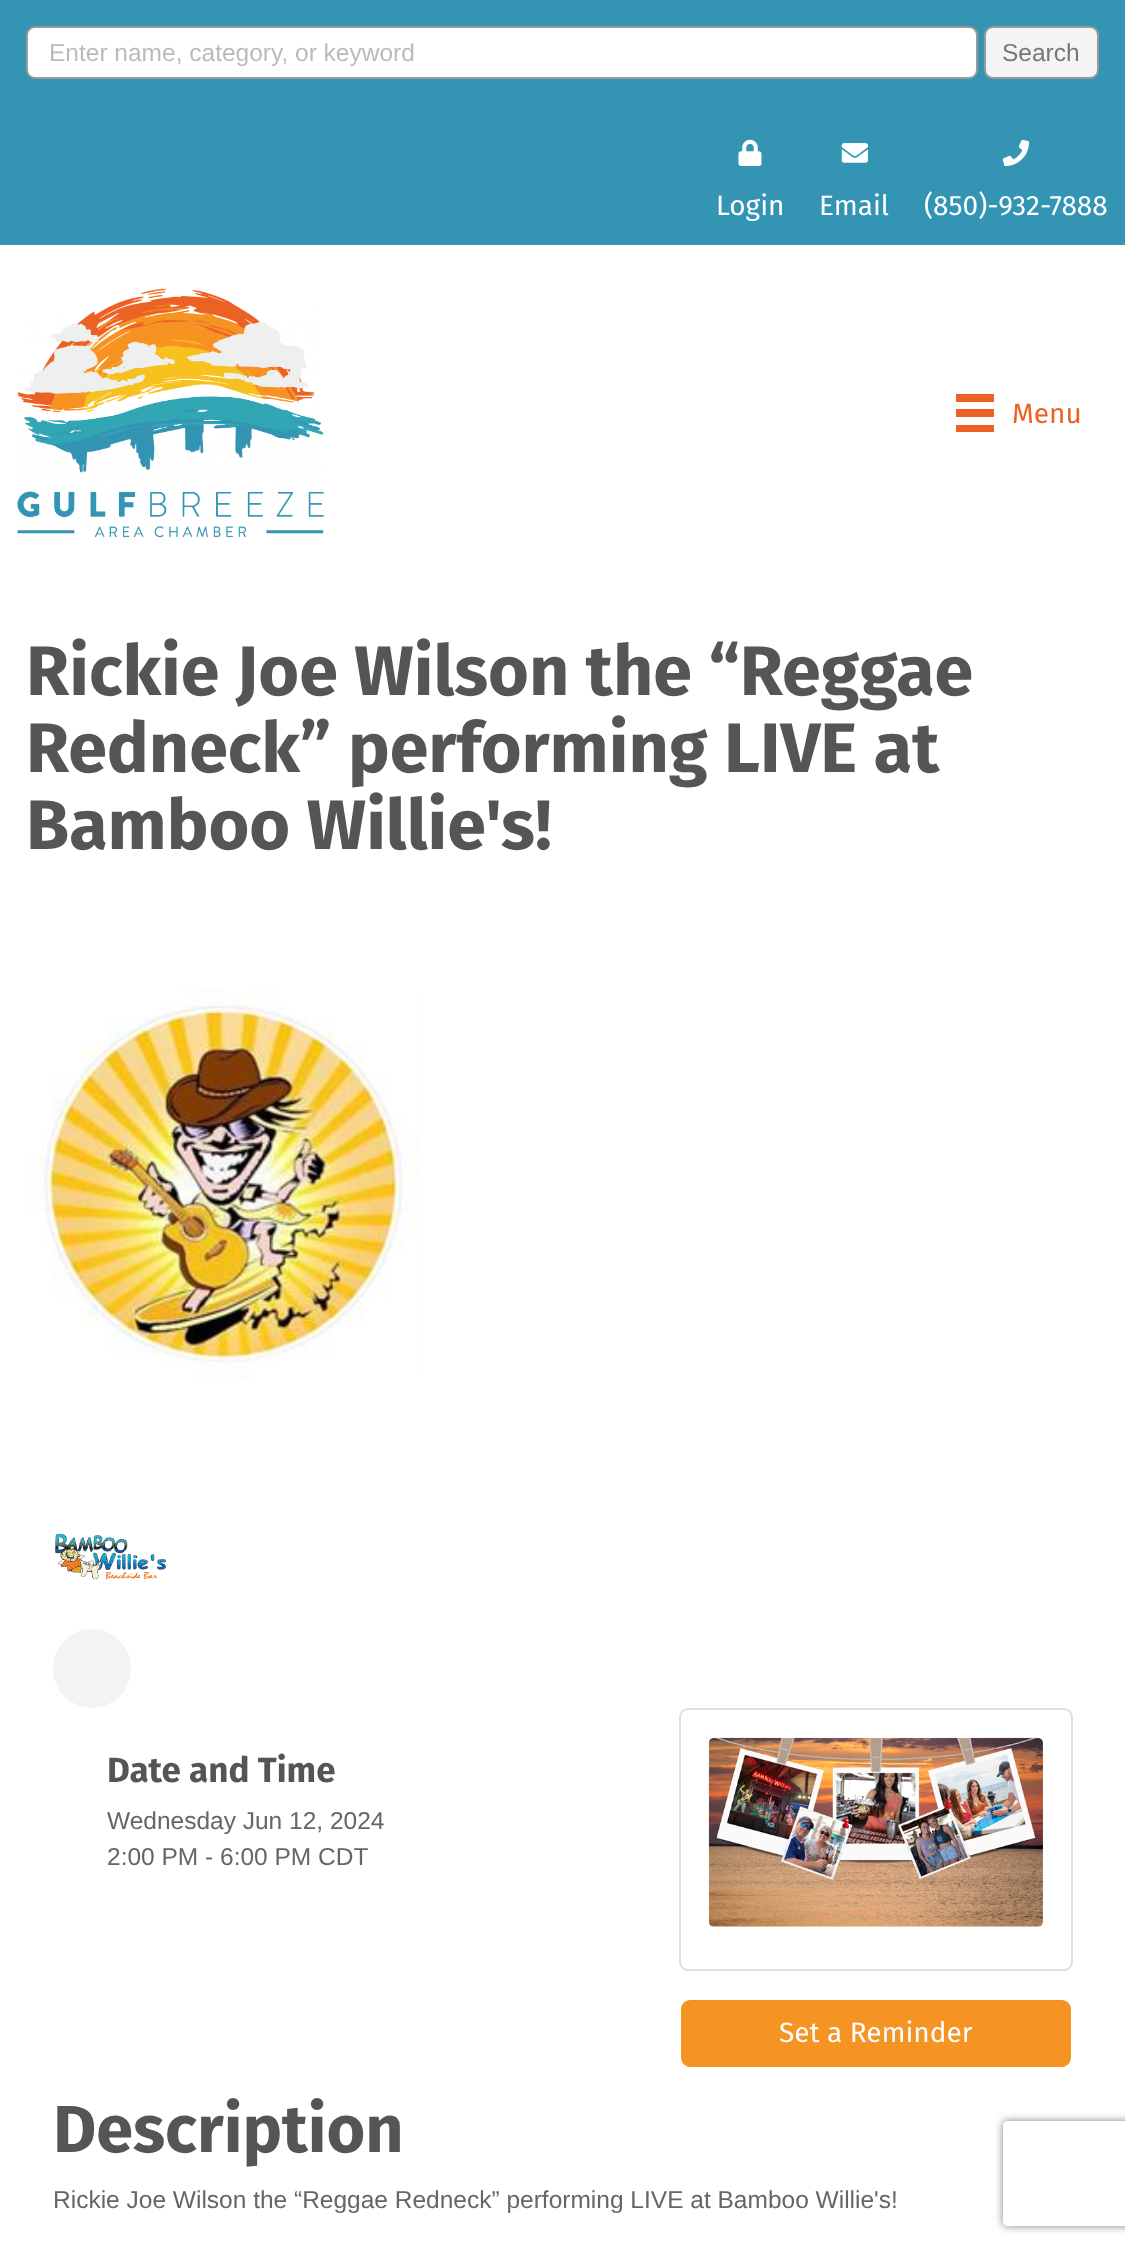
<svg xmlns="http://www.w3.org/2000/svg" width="1125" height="2250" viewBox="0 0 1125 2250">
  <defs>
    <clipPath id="clip1"><path d="M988 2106H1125V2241H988ZM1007 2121H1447C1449 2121 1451 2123 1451 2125V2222C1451 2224 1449 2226 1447 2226H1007C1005 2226 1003 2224 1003 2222V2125C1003 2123 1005 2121 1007 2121Z" clip-rule="evenodd"/></clipPath>
  </defs>
  <rect width="100%" height="100%" fill="rgb(255,255,255)"/>
  <rect x="0" y="0" width="1125" height="245" fill="rgb(52,148,180)"/>
  <rect x="27" y="27" width="950" height="51" rx="8" fill="rgb(255,255,255)" stroke="rgb(153,153,153)" stroke-width="2"/>
  <text x="49" y="61" font-family="Liberation Sans" font-size="24.5" fill="rgb(187,187,187)">Enter name, category, or keyword</text>
  <rect x="985" y="27" width="113" height="51" rx="8" fill="rgb(244,244,244)" stroke="rgb(153,153,153)" stroke-width="2"/>
  <text x="1002" y="61" font-family="Liberation Sans" font-size="24.5" fill="rgb(119,119,119)">Search</text>
  <image x="738" y="139" width="24" height="27" href="pic1.png"/>
  <text x="716" y="215" font-family="Fira Sans" font-size="28" fill="rgb(255,255,255)">Login</text>
  <image x="841" y="143" width="27" height="20" href="pic2.png"/>
  <text x="819" y="215" font-family="Fira Sans" font-size="28" fill="rgb(255,255,255)">Email</text>
  <image x="1002" y="139" width="28" height="27" href="pic3.png"/>
  <text x="924" y="215" font-family="Fira Sans" font-size="28" fill="rgb(255,255,255)">(850)-932-7888</text>
  <image x="17" y="288" width="307" height="250" href="pic4.png"/>
  <rect x="956" y="394" width="38" height="8" fill="rgb(235,98,36)"/>
  <rect x="956" y="409" width="38" height="8" fill="rgb(235,98,36)"/>
  <rect x="956" y="425" width="38" height="7" fill="rgb(235,98,36)"/>
  <text x="1012" y="423" font-family="Fira Sans" font-size="28" fill="rgb(235,98,36)">Menu</text>
  <g font-family="Fira Sans" font-size="70" font-weight="bold" fill="rgb(85,85,85)">
    <text>
      <tspan x="26" y="695">Rickie Joe Wilson the “Reggae</tspan>
      <tspan x="26" y="772">Redneck” performing LIVE at</tspan>
      <tspan x="26" y="849">Bamboo Willie's!</tspan>
    </text>
  </g>
  <image x="26" y="989" width="393" height="391" href="pic5.png"/>
  <image x="55" y="1533" width="111" height="47" href="pic6.png"/>
  <rect x="53" y="1629" width="78" height="79" rx="39" fill="rgb(243,243,243)"/>
  <text x="107" y="1782" font-family="Fira Sans" font-size="35" font-weight="bold" fill="rgb(85,85,85)">Date and Time</text>
  <g font-family="Liberation Sans" font-size="24.5" fill="rgb(102,102,102)">
    <text>
      <tspan x="107" y="1829">Wednesday Jun 12, 2024</tspan>
      <tspan x="107" y="1865">2:00 PM - 6:00 PM CDT</tspan>
    </text>
  </g>
  <rect x="680" y="1709" width="392" height="261" rx="8" fill="none" stroke="rgb(223,223,223)" stroke-width="2"/>
  <image x="708" y="1737" width="335" height="190" href="pic7.png"/>
  <rect x="682" y="2001" width="388" height="65" rx="8" fill="rgb(245,147,35)" stroke="rgb(245,147,35)" stroke-width="2"/>
  <text x="779" y="2042" font-family="Fira Sans" font-size="28" fill="rgb(255,255,255)">Set a Reminder</text>
  <text x="53" y="2152" font-family="Fira Sans" font-size="66.5" font-weight="bold" fill="rgb(85,85,85)">Description</text>
  <text x="53" y="2208" font-family="Liberation Sans" font-size="24.5" fill="rgb(102,102,102)">Rickie Joe Wilson the “Reggae Redneck” performing LIVE at Bamboo Willie's!</text>
  <g clip-path="url(#clip1)">
    <rect x="1003" y="2121" width="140" height="105" rx="4" fill="rgb(128,128,128)" filter="blur(4.5px)"/>
  </g>
</svg>
